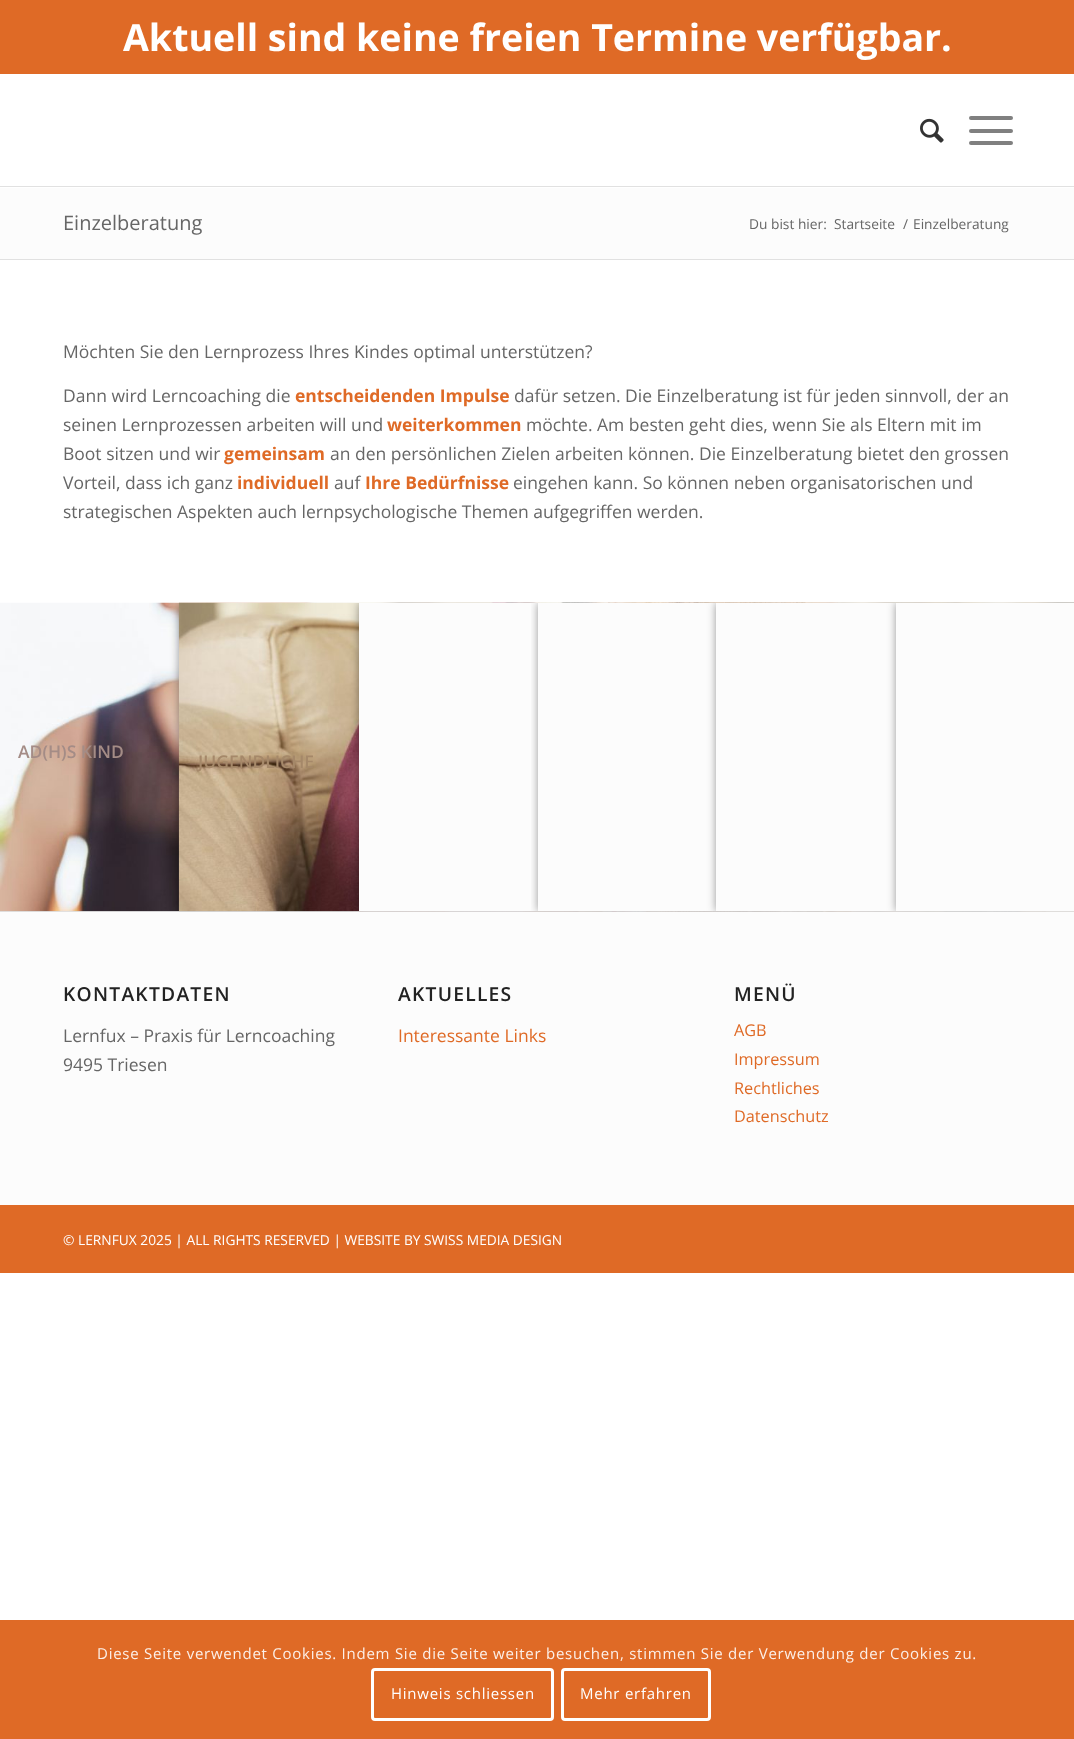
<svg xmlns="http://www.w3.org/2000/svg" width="1074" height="1739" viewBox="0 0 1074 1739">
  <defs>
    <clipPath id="clip1"><rect x="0" y="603" width="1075" height="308"/></clipPath>
    <clipPath id="clip2"><rect x="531" y="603" width="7" height="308"/></clipPath>
  </defs>
  <rect width="100%" height="100%" fill="rgb(255,255,255)"/>
  <rect x="0" y="0" width="1074" height="74" fill="rgb(223,106,38)"/>
  <text x="123" y="51" font-family="Open Sans" font-size="37.5" font-weight="bold" fill="rgb(255,255,255)">Aktuell sind keine freien Termine verfügbar.</text>
  <rect x="0" y="186" width="1074" height="1" fill="rgb(225,225,225)"/>
  <image x="920" y="118" width="24" height="25" href="pic1.png"/>
  <rect x="969" y="129" width="44" height="4" rx="2" fill="rgb(128,128,128)"/>
  <rect x="969" y="116" width="44" height="4" rx="2" fill="rgb(128,128,128)"/>
  <rect x="969" y="141" width="44" height="4" rx="2" fill="rgb(128,128,128)"/>
  <rect x="0" y="188" width="1074" height="71" fill="rgb(252,252,252)"/>
  <text x="63" y="230" font-family="Open Sans" font-size="20" fill="rgb(102,102,102)">Einzelberatung</text>
  <g font-family="Open Sans" font-size="13.75" fill="rgb(102,102,102)">
    <text x="749" y="229">Du bist hier:</text>
    <text x="834" y="229">Startseite</text>
    <text x="903" y="229">/</text>
    <text x="913" y="229">Einzelberatung</text>
  </g>
  <rect x="0" y="259" width="1074" height="1" fill="rgb(225,225,225)"/>
  <g font-family="Open Sans" font-size="17.5" fill="rgb(102,102,102)">
    <text x="63" y="358">Möchten Sie den Lernprozess Ihres Kindes optimal unterstützen?</text>
    <text x="63" y="402">Dann wird Lerncoaching die</text>
  </g>
  <text x="295" y="402" font-family="Open Sans" font-size="17.5" font-weight="bold" fill="rgb(223,106,38)">entscheidenden Impulse</text>
  <g font-family="Open Sans" font-size="17.5" fill="rgb(102,102,102)">
    <text x="514" y="402">dafür setzen. Die Einzelberatung ist für jeden sinnvoll, der an</text>
    <text x="63" y="431">seinen Lernprozessen arbeiten will und</text>
  </g>
  <text x="387" y="431" font-family="Open Sans" font-size="17.5" font-weight="bold" fill="rgb(223,106,38)">weiterkommen</text>
  <g font-family="Open Sans" font-size="17.5" fill="rgb(102,102,102)">
    <text x="526" y="431">möchte. Am besten geht dies, wenn Sie als Eltern mit im</text>
    <text x="63" y="460">Boot sitzen und wir</text>
  </g>
  <text x="224" y="460" font-family="Open Sans" font-size="17.5" font-weight="bold" fill="rgb(223,106,38)">gemeinsam</text>
  <g font-family="Open Sans" font-size="17.5" fill="rgb(102,102,102)">
    <text x="330" y="460">an den persönlichen Zielen arbeiten können. Die Einzelberatung bietet den grossen</text>
    <text x="63" y="489">Vorteil, dass ich ganz</text>
  </g>
  <text x="237" y="489" font-family="Open Sans" font-size="17.5" font-weight="bold" fill="rgb(223,106,38)">individuell</text>
  <text x="334" y="489" font-family="Open Sans" font-size="17.5" fill="rgb(102,102,102)">auf</text>
  <text x="365" y="489" font-family="Open Sans" font-size="17.5" font-weight="bold" fill="rgb(223,106,38)">Ihre Bedürfnisse</text>
  <g font-family="Open Sans" font-size="17.5" fill="rgb(102,102,102)">
    <text x="513" y="489">eingehen kann. So können neben organisatorischen und</text>
    <text x="63" y="518">strategischen Aspekten auch lernpsychologische Themen aufgegriffen werden.</text>
  </g>
  <rect x="0" y="911" width="1074" height="1" fill="rgb(225,225,225)"/>
  <image x="0" y="602" width="1074" height="310" href="pic2.png"/>
  <rect x="0" y="912" width="1074" height="293" fill="rgb(252,252,252)"/>
  <g clip-path="url(#clip1)">
    <rect x="179" y="603" width="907" height="308" fill="rgba(0,0,0,0.4)" filter="blur(4px)"/>
  </g>
  <image x="178" y="602" width="896" height="310" href="pic3.png"/>
  <g clip-path="url(#clip1)">
    <rect x="359" y="603" width="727" height="308" fill="rgba(0,0,0,0.4)" filter="blur(4px)"/>
  </g>
  <rect x="359" y="603" width="357" height="308" fill="rgb(252,252,252)"/>
  <g clip-path="url(#clip1)">
    <g clip-path="url(#clip2)">
      <rect x="538" y="603" width="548" height="308" fill="rgba(0,0,0,0.4)" filter="blur(4px)"/>
    </g>
  </g>
  <g clip-path="url(#clip1)">
    <rect x="716" y="603" width="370" height="308" fill="rgba(0,0,0,0.4)" filter="blur(4px)"/>
  </g>
  <rect x="716" y="603" width="180" height="308" fill="rgb(252,252,252)"/>
  <text x="18" y="758" font-family="Open Sans" font-size="17.5" font-weight="600" fill="rgb(164,140,134)">AD(H)S KIND</text>
  <g clip-path="url(#clip1)">
    <rect x="896" y="603" width="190" height="308" fill="rgba(0,0,0,0.4)" filter="blur(4px)"/>
  </g>
  <rect x="896" y="603" width="178" height="308" fill="rgb(252,252,252)"/>
  <text x="198" y="768" font-family="Open Sans" font-size="17.5" font-weight="600" fill="rgb(165,136,105)">JUGENDLICHE</text>
  <text x="63" y="1001" font-family="Open Sans" font-size="19.25" font-weight="600" letter-spacing="1.25" fill="rgb(34,34,34)">KONTAKTDATEN</text>
  <g font-family="Open Sans" font-size="17.5" fill="rgb(102,102,102)">
    <text>
      <tspan x="63" y="1042">Lernfux – Praxis für Lerncoaching</tspan>
      <tspan x="63" y="1071">9495 Triesen</tspan>
    </text>
  </g>
  <text x="398" y="1001" font-family="Open Sans" font-size="19.25" font-weight="600" letter-spacing="1.25" fill="rgb(34,34,34)">AKTUELLES</text>
  <text x="398" y="1042" font-family="Open Sans" font-size="17.5" fill="rgb(223,106,38)">Interessante Links</text>
  <text x="734" y="1001" font-family="Open Sans" font-size="19.25" font-weight="600" letter-spacing="1.25" fill="rgb(34,34,34)">MENÜ</text>
  <g font-family="Open Sans" font-size="16.25" fill="rgb(223,106,38)">
    <text>
      <tspan x="734" y="1036">AGB</tspan>
      <tspan x="734" y="1065">Impressum</tspan>
      <tspan x="734" y="1094">Rechtliches</tspan>
      <tspan x="734" y="1122">Datenschutz</tspan>
    </text>
  </g>
  <rect x="0" y="1205" width="1074" height="68" fill="rgb(223,106,38)"/>
  <text x="63" y="1245" font-family="Open Sans" font-size="13.75" fill="rgb(255,255,255)">© LERNFUX 2025 | ALL RIGHTS RESERVED | WEBSITE BY SWISS MEDIA DESIGN</text>
  <rect x="0" y="1620" width="1074" height="119" fill="rgb(223,106,38)"/>
  <text x="97" y="1659" font-family="Open Sans" font-size="15" letter-spacing="0.75" fill="rgb(252,240,233)">Diese Seite verwendet Cookies. Indem Sie die Seite weiter besuchen, stimmen Sie der Verwendung der Cookies zu.</text>
  <rect x="372.5" y="1669.5" width="180" height="50" rx="2.5" fill="none" stroke="rgb(255,255,255)" stroke-width="3"/>
  <text x="391" y="1699" font-family="Open Sans" font-size="15" letter-spacing="0.75" fill="rgb(255,255,255)">Hinweis schliessen</text>
  <rect x="562.5" y="1669.5" width="147" height="50" rx="2.5" fill="none" stroke="rgb(255,255,255)" stroke-width="3"/>
  <text x="580" y="1699" font-family="Open Sans" font-size="15" letter-spacing="0.75" fill="rgb(255,255,255)">Mehr erfahren</text>
</svg>
